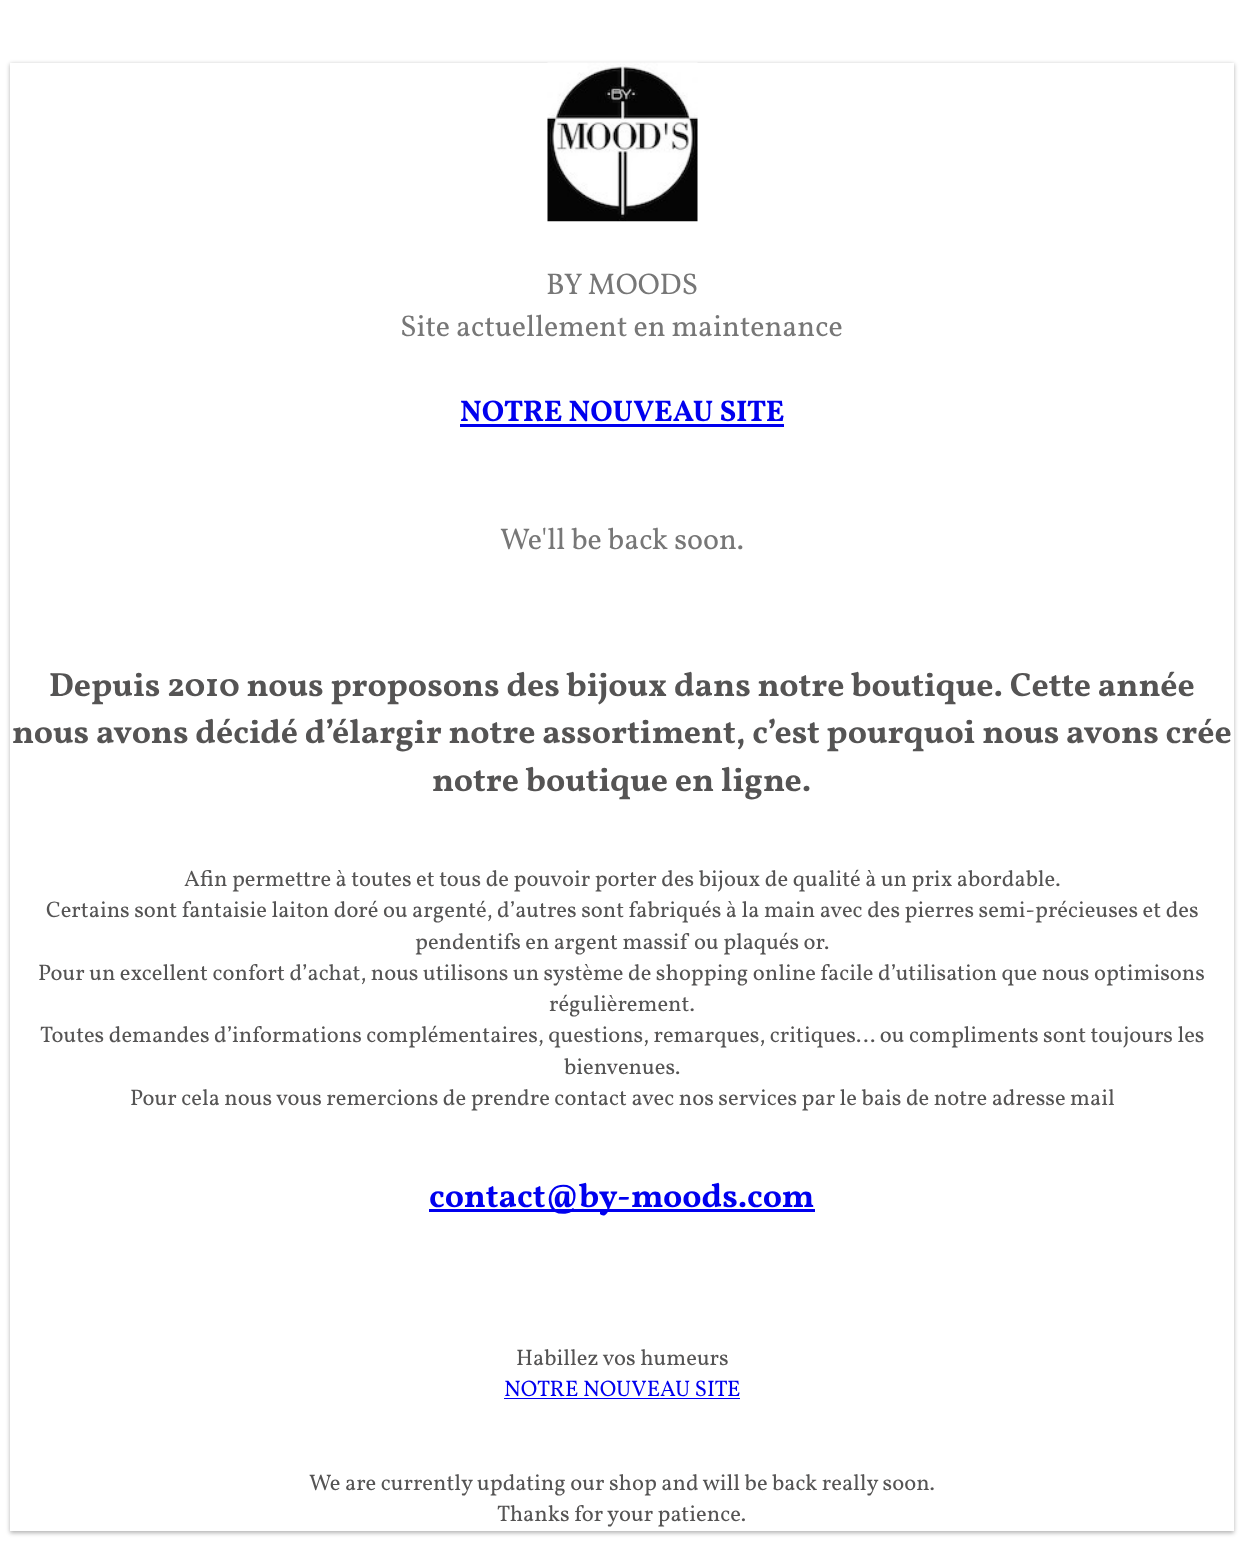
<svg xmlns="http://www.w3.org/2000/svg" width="1243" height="1552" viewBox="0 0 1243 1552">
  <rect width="100%" height="100%" fill="rgb(255,255,255)"/>
  <rect x="10" y="64" width="1224" height="1469" fill="rgba(0,0,0,0.3)" filter="blur(2px)"/>
  <rect x="10" y="63" width="1224" height="1468" fill="rgb(255,255,255)"/>
  <image x="547" y="62" width="151" height="160" href="pic1.png"/>
  <g font-family="Vollkorn" font-size="30" fill="rgb(119,119,119)">
    <text x="546" y="294">BY MOODS</text>
    <text x="400" y="336">Site actuellement en maintenance</text>
  </g>
  <text x="460" y="421" font-family="Vollkorn" font-size="30" font-weight="bold" fill="rgb(0,0,238)">NOTRE NOUVEAU SITE</text>
  <rect x="460" y="424" width="324" height="3" fill="rgb(0,0,238)"/>
  <text x="500" y="549" font-family="Vollkorn" font-size="30" fill="rgb(119,119,119)">We'll be back soon.</text>
  <g font-family="Vollkorn" font-size="33.75" font-weight="bold" fill="rgb(85,84,84)">
    <text x="49" y="696">Depuis 2010 nous proposons des bijoux dans notre boutique. Cette année</text>
    <text x="12" y="743">nous avons décidé d’élargir notre assortiment, c’est pourquoi nous avons crée</text>
    <text x="432" y="791">notre boutique en ligne.</text>
  </g>
  <g font-family="Vollkorn" font-size="22.5" fill="rgb(85,84,84)">
    <text x="184" y="886">Afin permettre à toutes et tous de pouvoir porter des bijoux de qualité à un prix abordable.</text>
    <text x="46" y="917">Certains sont fantaisie laiton doré ou argenté, d’autres sont fabriqués à la main avec des pierres semi-précieuses et des</text>
    <text x="415" y="949">pendentifs en argent massif ou plaqués or.</text>
    <text x="38" y="980">Pour un excellent confort d’achat, nous utilisons un système de shopping online facile d’utilisation que nous optimisons</text>
    <text x="549" y="1011">régulièrement.</text>
    <text x="40" y="1042">Toutes demandes d’informations complémentaires, questions, remarques, critiques… ou compliments sont toujours les</text>
    <text x="564" y="1074">bienvenues.</text>
    <text x="130" y="1105">Pour cela nous vous remercions de prendre contact avec nos services par le bais de notre adresse mail</text>
  </g>
  <rect x="429" y="1209" width="386" height="3" fill="rgb(0,0,238)"/>
  <text x="429" y="1207" font-family="Vollkorn" font-size="33.75" font-weight="bold" fill="rgb(0,0,238)">contact@by-moods.com</text>
  <text x="516" y="1365" font-family="Vollkorn" font-size="22.5" fill="rgb(85,84,84)">Habillez vos humeurs</text>
  <text x="504" y="1396" font-family="Vollkorn" font-size="22.5" fill="rgb(0,0,238)">NOTRE NOUVEAU SITE</text>
  <rect x="504" y="1398" width="236" height="1" fill="rgb(0,0,238)"/>
  <g font-family="Vollkorn" font-size="22.5" fill="rgb(85,84,84)">
    <text x="309" y="1490">We are currently updating our shop and will be back really soon.</text>
    <text x="497" y="1521">Thanks for your patience.</text>
  </g>
</svg>
